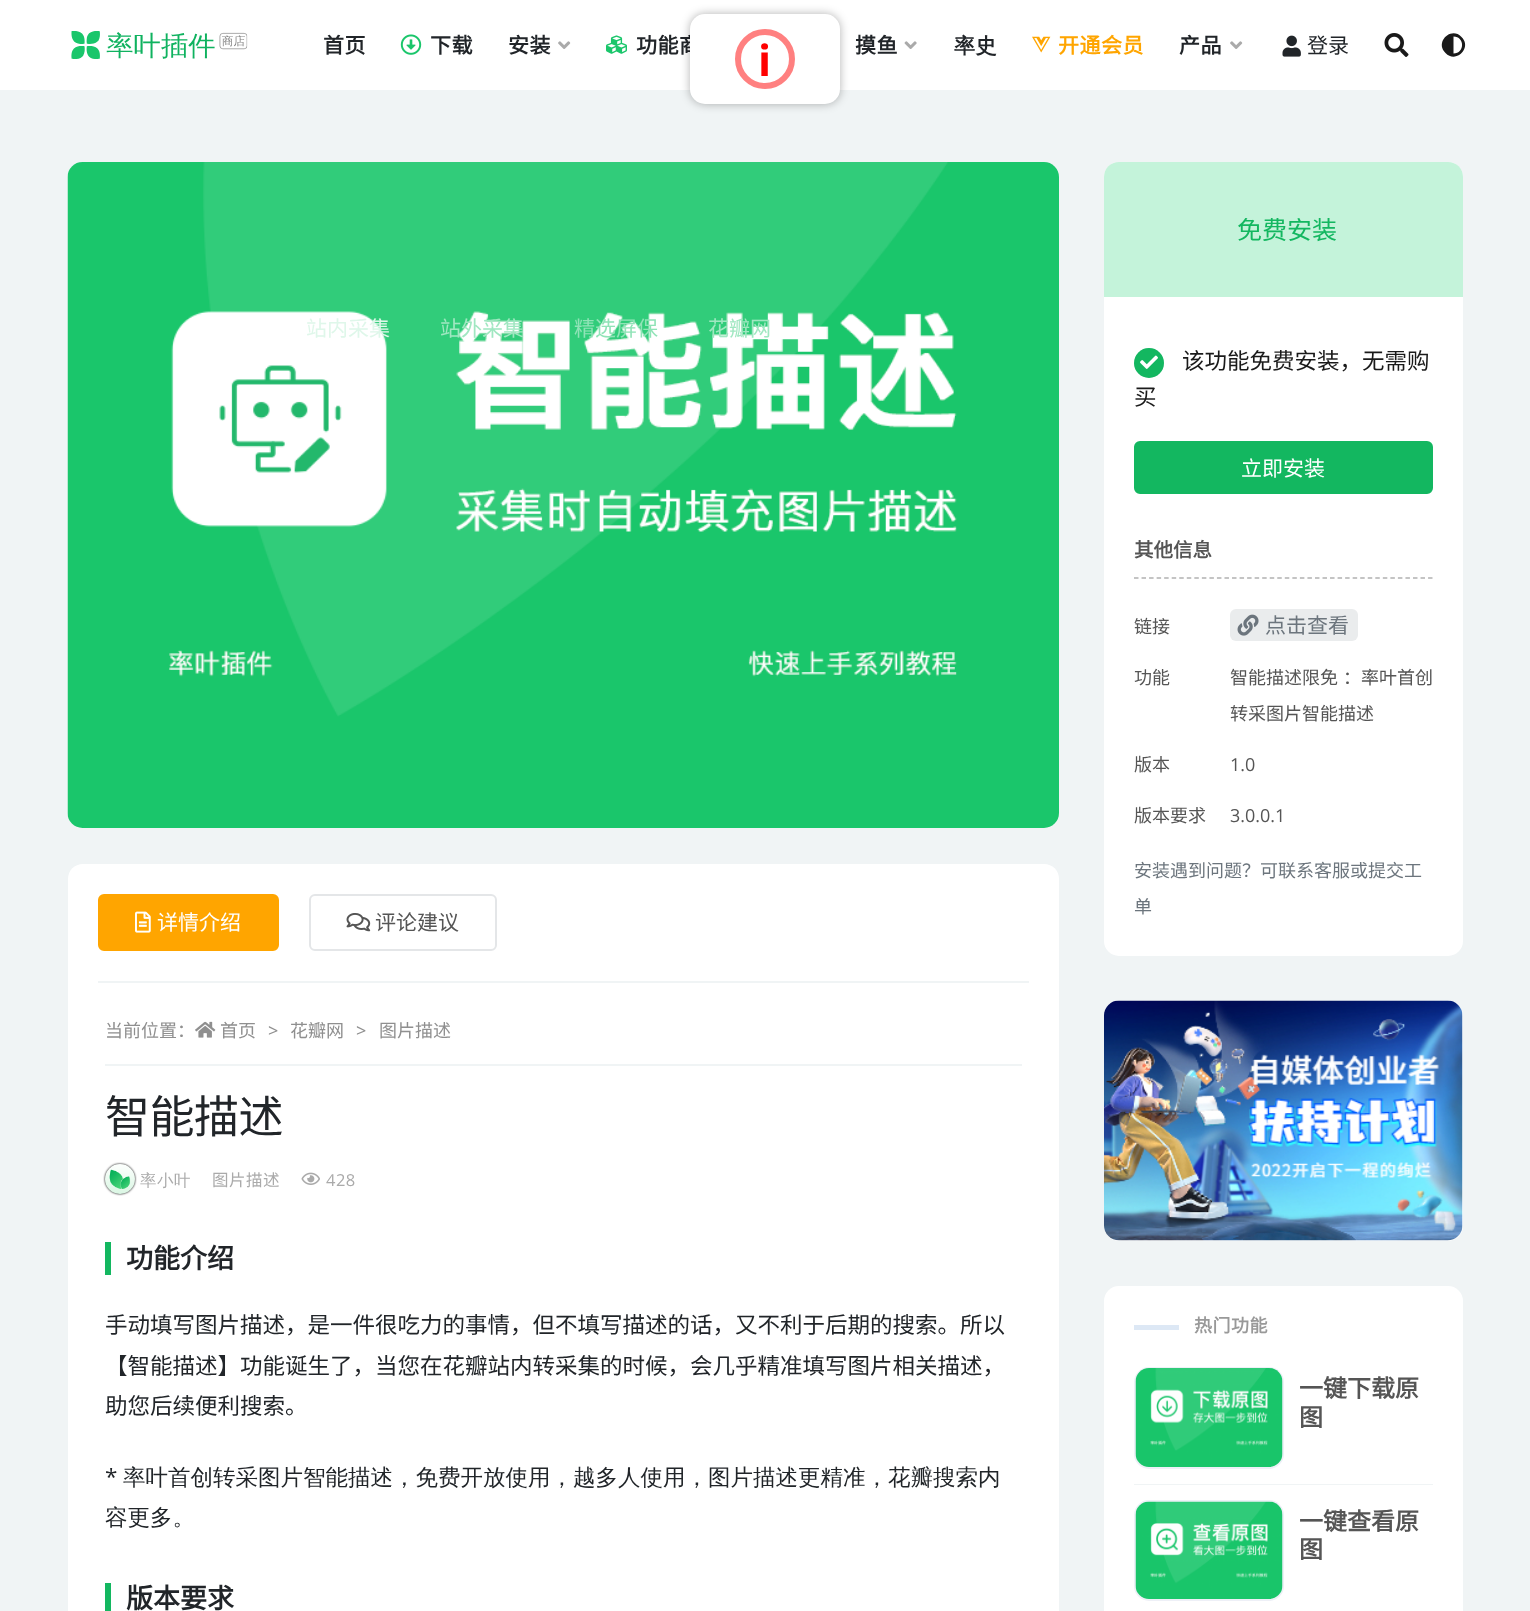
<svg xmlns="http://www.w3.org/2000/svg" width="1530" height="1611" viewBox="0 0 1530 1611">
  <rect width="100%" height="100%" fill="rgb(240,244,245)"/>
  <rect x="0" y="0" width="1530" height="90" fill="rgb(255,255,255)"/>
  <image x="71" y="31" width="177" height="28" href="pic1.png"/>
  <text x="323" y="53" font-family="Noto Sans CJK SC" font-size="21" font-weight="bold" letter-spacing="0.5" fill="rgb(33,37,41)">首页</text>
  <image x="400" y="34" width="22" height="21" href="pic2.png"/>
  <g font-family="Noto Sans CJK SC" font-size="21" font-weight="bold" letter-spacing="0.5" fill="rgb(33,37,41)">
    <text x="430" y="53">下载</text>
    <text x="508" y="53">安装</text>
  </g>
  <image x="558" y="41" width="13" height="8" href="pic3.png"/>
  <image x="606" y="35" width="21" height="19" href="pic4.png"/>
  <g font-family="Noto Sans CJK SC" font-size="21" font-weight="bold" letter-spacing="0.5" fill="rgb(33,37,41)">
    <text x="636" y="53">功能商</text>
    <text x="855" y="53">摸鱼</text>
  </g>
  <image x="904" y="41" width="13" height="8" href="pic5.png"/>
  <text x="954" y="53" font-family="WenQuanYi Zen Hei" font-size="21" font-weight="bold" letter-spacing="0.5" fill="rgb(33,37,41)">率史</text>
  <image x="1032" y="36" width="19" height="17" href="pic6.png"/>
  <text x="1058" y="53" font-family="Noto Sans CJK SC" font-size="21" font-weight="bold" letter-spacing="0.5" fill="rgb(255,165,0)">开通会员</text>
  <text x="1179" y="53" font-family="Noto Sans CJK SC" font-size="21" font-weight="bold" letter-spacing="0.5" fill="rgb(33,37,41)">产品</text>
  <image x="1230" y="41" width="13" height="8" href="pic3.png"/>
  <image x="1282" y="35" width="19" height="22" href="pic7.png"/>
  <text x="1307" y="53" font-family="Noto Sans CJK SC" font-size="21" fill="rgb(33,37,41)">登录</text>
  <image x="1384" y="33" width="25" height="24" href="pic8.png"/>
  <path d="M1445.5 53C1434.5 42.5 1451 26 1461.5 37C1472.5 47.5 1456 64 1445.5 53ZM1453.5 53.5C1465 53.5 1465 36.5 1453.5 36.5Z" fill="rgb(26,26,26)"/>
  <image x="67" y="162" width="992" height="666" href="pic9.png"/>
  <path d="M83 864H1044C1052.5 864 1059 870.5 1059 879V983H68V879C68 870.5 74.5 864 83 864Z" fill="rgb(255,255,255)"/>
  <rect x="98" y="981" width="931" height="2" fill="rgb(240,244,245)"/>
  <rect x="99" y="895" width="179" height="55" rx="5" fill="rgb(255,165,0)" stroke="rgb(255,165,0)" stroke-width="2"/>
  <image x="135" y="911" width="16" height="22" href="pic10.png"/>
  <text x="157" y="930" font-family="Noto Sans CJK SC" font-size="21" fill="rgb(255,255,255)">详情介绍</text>
  <rect x="310" y="895" width="186" height="55" rx="5" fill="none" stroke="rgb(228,230,232)" stroke-width="2"/>
  <image x="346" y="913" width="25" height="19" href="pic11.png"/>
  <text x="375" y="930" font-family="Noto Sans CJK SC" font-size="21" fill="rgb(85,85,85)">评论建议</text>
  <rect x="68" y="983" width="991" height="628" fill="rgb(255,255,255)"/>
  <rect x="105" y="1064" width="917" height="2" fill="rgb(240,244,245)"/>
  <text x="105" y="1037" font-family="Noto Sans CJK SC" font-size="18" fill="rgb(143,143,143)">当前位置：</text>
  <image x="195" y="1021" width="21" height="17" href="pic12.png"/>
  <text x="220" y="1037" font-family="Noto Sans CJK SC" font-size="18" fill="rgb(143,143,143)">首页</text>
  <text x="268" y="1037" font-family="Open Sans" font-size="18" fill="rgb(143,143,143)">&gt;</text>
  <text x="290" y="1037" font-family="Noto Sans CJK SC" font-size="18" fill="rgb(143,143,143)">花瓣网</text>
  <text x="356" y="1037" font-family="Open Sans" font-size="18" fill="rgb(143,143,143)">&gt;</text>
  <text x="379" y="1037" font-family="Noto Sans CJK SC" font-size="18" fill="rgb(143,143,143)">图片描述</text>
  <text x="105" y="1133" font-family="Noto Sans CJK SC" font-size="45" letter-spacing="-0.5" fill="rgb(33,37,41)">智能描述</text>
  <rect x="105" y="1164" width="30" height="30" rx="15" fill="rgb(0,0,0)" filter="blur(1px)"/>
  <image x="105" y="1164" width="30" height="30" href="pic13.png"/>
  <text x="140" y="1186" font-family="WenQuanYi Zen Hei" font-size="16.5" font-weight="500" letter-spacing="0.5" fill="rgb(170,170,170)">率小叶</text>
  <text x="212" y="1186" font-family="Noto Sans CJK SC" font-size="16.5" letter-spacing="0.5" fill="rgb(170,170,170)">图片描述</text>
  <image x="301" y="1172" width="19" height="13" href="pic14.png"/>
  <text x="326" y="1186" font-family="Open Sans" font-size="16.5" letter-spacing="0.5" fill="rgb(170,170,170)">428</text>
  <rect x="105" y="1242" width="6" height="33" fill="rgb(19,183,96)"/>
  <text x="126" y="1268" font-family="Noto Sans CJK SC" font-size="27" font-weight="bold" fill="rgb(33,37,41)">功能介绍</text>
  <g font-family="Noto Sans CJK SC" font-size="22.5" fill="rgb(33,37,41)">
    <text>
      <tspan x="105" y="1333">手动填写图片描述，是一件很吃力的事情，但不填写描述的话，又不利于后期的搜索。所以</tspan>
      <tspan x="105" y="1374">【智能描述】功能诞生了，当您在花瓣站内转采集的时候，会几乎精准填写图片相关描述，</tspan>
      <tspan x="105" y="1414">助您后续便利搜索。</tspan>
    </text>
  </g>
  <text x="105" y="1485" font-family="Open Sans" font-size="22.5" fill="rgb(33,37,41)">*</text>
  <g font-family="WenQuanYi Zen Hei" font-size="22.5" font-weight="500" fill="rgb(33,37,41)">
    <text x="123" y="1485">率叶首创转采图片智能描述，免费开放使用，越多人使用，图片描述更精准，花瓣搜索内</text>
    <text x="105" y="1525">容更多。</text>
  </g>
  <rect x="105" y="1583" width="6" height="28" fill="rgb(19,183,96)"/>
  <text x="126" y="1608" font-family="Noto Sans CJK SC" font-size="27" font-weight="bold" fill="rgb(33,37,41)">版本要求</text>
  <rect x="1104" y="162" width="359" height="794" rx="15" fill="rgb(255,255,255)"/>
  <path d="M1119 162H1448C1456.5 162 1463 168.5 1463 177V297H1104V177C1104 168.5 1110.5 162 1119 162Z" fill="rgb(196,243,218)"/>
  <text x="1237" y="239" font-family="Noto Sans CJK SC" font-size="25" fill="rgb(19,183,96)">免费安装</text>
  <circle cx="1149" cy="363" r="12" fill="none" stroke="rgb(230,233,237)" stroke-width="6"/>
  <circle cx="1149" cy="363" r="15" fill="rgb(19,183,96)"/>
  <image x="1140" y="355" width="18" height="14" href="pic15.png"/>
  <g font-family="Noto Sans CJK SC" font-size="22.5" fill="rgb(26,26,26)">
    <text x="1182" y="369">该功能免费安装，无需购</text>
    <text x="1134" y="405">买</text>
  </g>
  <rect x="1135" y="442" width="297" height="51" rx="5" fill="rgb(19,183,96)" stroke="rgb(19,183,96)" stroke-width="2"/>
  <text x="1241" y="476" font-family="Noto Sans CJK SC" font-size="21" fill="rgb(255,255,255)">立即安装</text>
  <path d="M1134 578H1432.5" fill="none" stroke="rgb(177,177,177)" stroke-width="1.5" stroke-dasharray="4.5 3.04"/>
  <text x="1134" y="557" font-family="Noto Sans CJK SC" font-size="19.5" font-weight="bold" fill="rgb(85,85,85)">其他信息</text>
  <text x="1134" y="633" font-family="Noto Sans CJK SC" font-size="18" fill="rgb(85,85,85)">链接</text>
  <rect x="1230" y="609" width="128" height="32" rx="6" fill="rgb(234,236,237)"/>
  <image x="1237" y="614" width="22" height="22" href="pic16.png"/>
  <text x="1265" y="633" font-family="Noto Sans CJK SC" font-size="21" fill="rgb(108,117,125)">点击查看</text>
  <g font-family="Noto Sans CJK SC" font-size="18" fill="rgb(85,85,85)">
    <text x="1134" y="684">功能</text>
    <text x="1230" y="684" word-spacing="1">智能描述限免 ：率叶首创</text>
    <text x="1230" y="720">转采图片智能描述</text>
    <text x="1134" y="771">版本</text>
  </g>
  <text x="1230" y="771" font-family="Open Sans" font-size="18" fill="rgb(85,85,85)">1.0</text>
  <text x="1134" y="822" font-family="Noto Sans CJK SC" font-size="18" fill="rgb(85,85,85)">版本要求</text>
  <text x="1230" y="822" font-family="Open Sans" font-size="18" fill="rgb(85,85,85)">3.0.0.1</text>
  <g font-family="Noto Sans CJK SC" font-size="18" fill="rgb(108,117,125)">
    <text x="1134" y="877">安装遇到问题？可联系客服或提交工</text>
    <text x="1134" y="913">单</text>
  </g>
  <rect x="1104" y="1001" width="359" height="240" rx="15" fill="rgb(255,255,255)"/>
  <image x="1104" y="1000" width="359" height="241" href="pic17.png"/>
  <rect x="1104" y="1286" width="359" height="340" rx="15" fill="rgb(255,255,255)"/>
  <rect x="1134" y="1325" width="45" height="5" fill="rgb(221,232,245)"/>
  <text x="1194" y="1332" font-family="Noto Sans CJK SC" font-size="18" font-weight="bold" letter-spacing="0.5" fill="rgb(153,153,153)">热门功能</text>
  <rect x="1134" y="1484" width="299" height="1" fill="rgb(240,244,245)"/>
  <rect x="1135" y="1368" width="148" height="100" rx="14" fill="none" stroke="rgb(238,240,247)" stroke-width="2"/>
  <image x="1135" y="1368" width="148" height="99" href="pic18.png"/>
  <g font-family="Noto Sans CJK SC" font-size="24" font-weight="bold" fill="rgb(85,85,85)">
    <text>
      <tspan x="1299" y="1397">一键下载原</tspan>
      <tspan x="1299" y="1426">图</tspan>
    </text>
  </g>
  <rect x="1135" y="1501" width="148" height="99" rx="14" fill="none" stroke="rgb(238,240,247)" stroke-width="2"/>
  <image x="1135" y="1501" width="148" height="98" href="pic19.png"/>
  <g font-family="Noto Sans CJK SC" font-size="24" font-weight="bold" fill="rgb(85,85,85)">
    <text>
      <tspan x="1299" y="1530">一键查看原</tspan>
      <tspan x="1299" y="1558">图</tspan>
    </text>
  </g>
  <rect x="690" y="14" width="150" height="90" rx="15" fill="rgba(0,0,0,0.3)" filter="blur(5px)"/>
  <rect x="690" y="14" width="150" height="90" rx="15" fill="rgb(255,255,255)"/>
  <circle cx="765" cy="59" r="27" fill="none" stroke="rgb(255,128,128)" stroke-width="6"/>
  <text x="758" y="76" font-family="Open Sans" font-size="43" font-weight="bold" fill="rgb(255,0,0)">i</text>
  <text x="306" y="336" font-family="Noto Sans CJK SC" font-size="21" fill="rgb(223,247,234)">站内采集</text>
  <text x="440" y="336" font-family="Noto Sans CJK SC" font-size="21" fill="rgb(160,231,193)">站外采集</text>
  <text x="574" y="336" font-family="Noto Sans CJK SC" font-size="21" fill="rgb(144,227,183)">精选屏保</text>
  <text x="708" y="336" font-family="Noto Sans CJK SC" font-size="21" fill="rgb(160,231,193)">花瓣网</text>
</svg>
